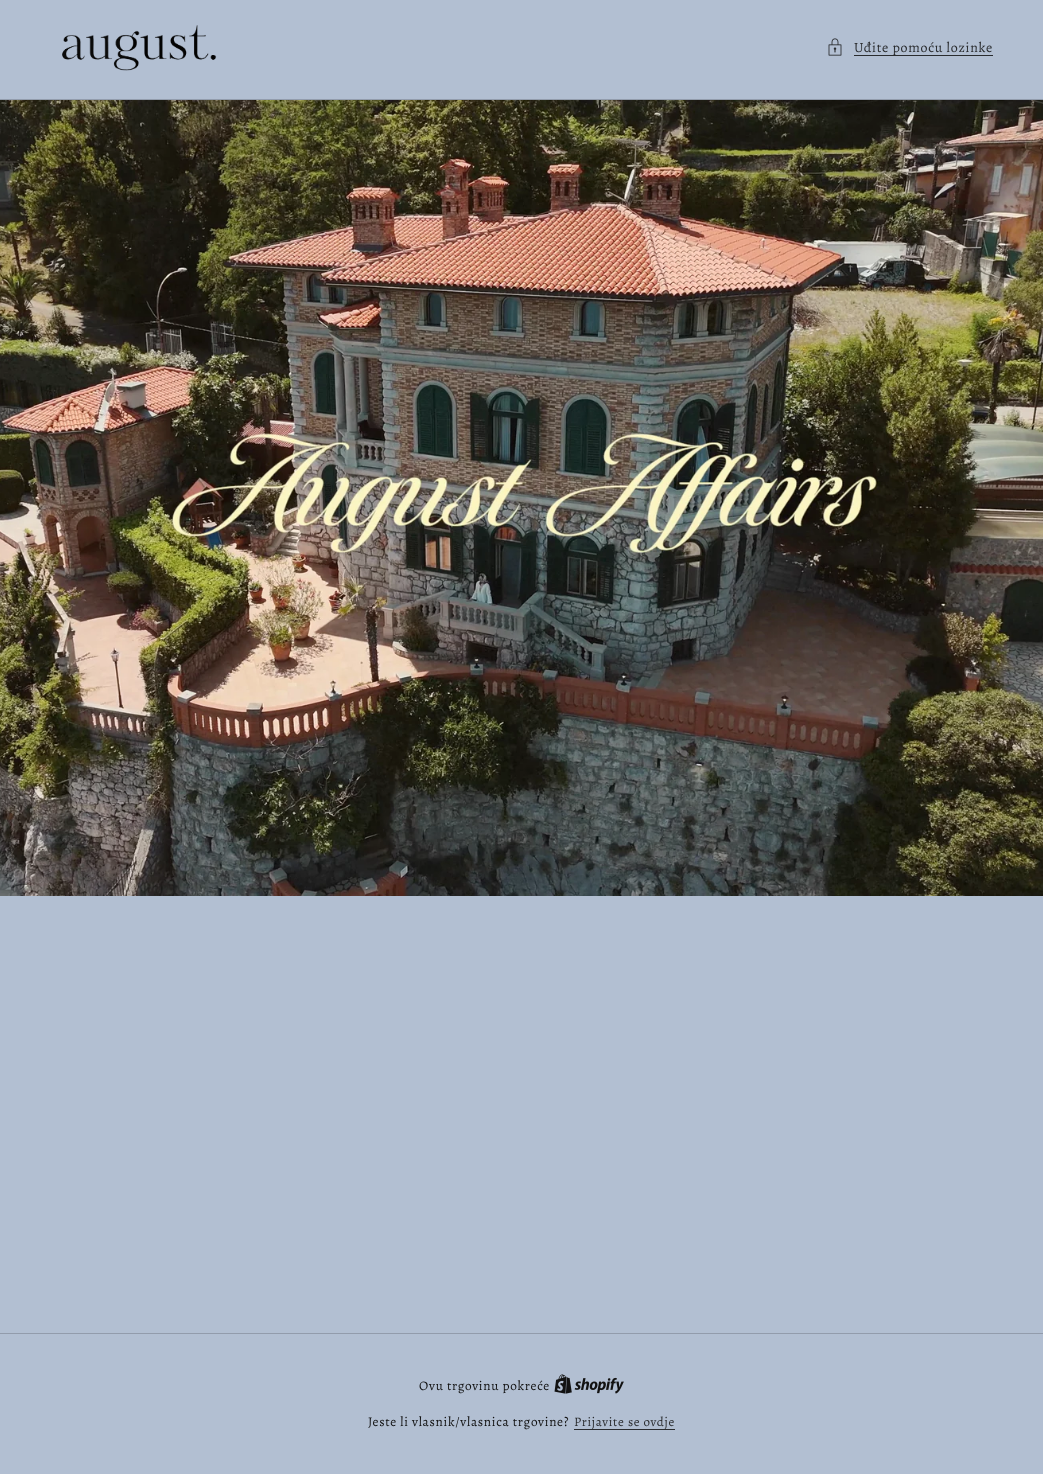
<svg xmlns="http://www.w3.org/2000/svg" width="1043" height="1474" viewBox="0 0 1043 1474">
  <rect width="100%" height="100%" fill="rgb(178,191,210)"/>
  <image x="62" y="25" width="155" height="46" href="pic1.png"/>
  <image x="828" y="38" width="14" height="18" href="pic2.png"/>
  <rect x="854" y="55" width="139" height="1" fill="rgb(42,44,47)"/>
  <text x="854" y="52" font-family="Alegreya" font-size="14" letter-spacing="0.7" fill="rgb(42,44,47)">Uđite pomoću lozinke</text>
  <rect x="0" y="99" width="1043" height="1" fill="rgb(146,156,172)"/>
  <image x="0" y="100" width="1043" height="796" href="pic3.png"/>
  <rect x="0" y="1333" width="1043" height="1" fill="rgb(146,156,172)"/>
  <text x="419" y="1390" font-family="Alegreya" font-size="13.3" letter-spacing="0.7" fill="rgb(18,18,18)">Ovu trgovinu pokreće</text>
  <image x="554" y="1374" width="70" height="20" href="pic4.png"/>
  <text x="368" y="1426" font-family="Alegreya" font-size="13.3" letter-spacing="0.7" fill="rgb(18,18,18)">Jeste li vlasnik/vlasnica trgovine?</text>
  <rect x="574" y="1429" width="101" height="1" fill="rgb(42,44,47)"/>
  <text x="574" y="1426" font-family="Alegreya" font-size="13" letter-spacing="0.7" fill="rgb(42,44,47)">Prijavite se ovdje</text>
</svg>
